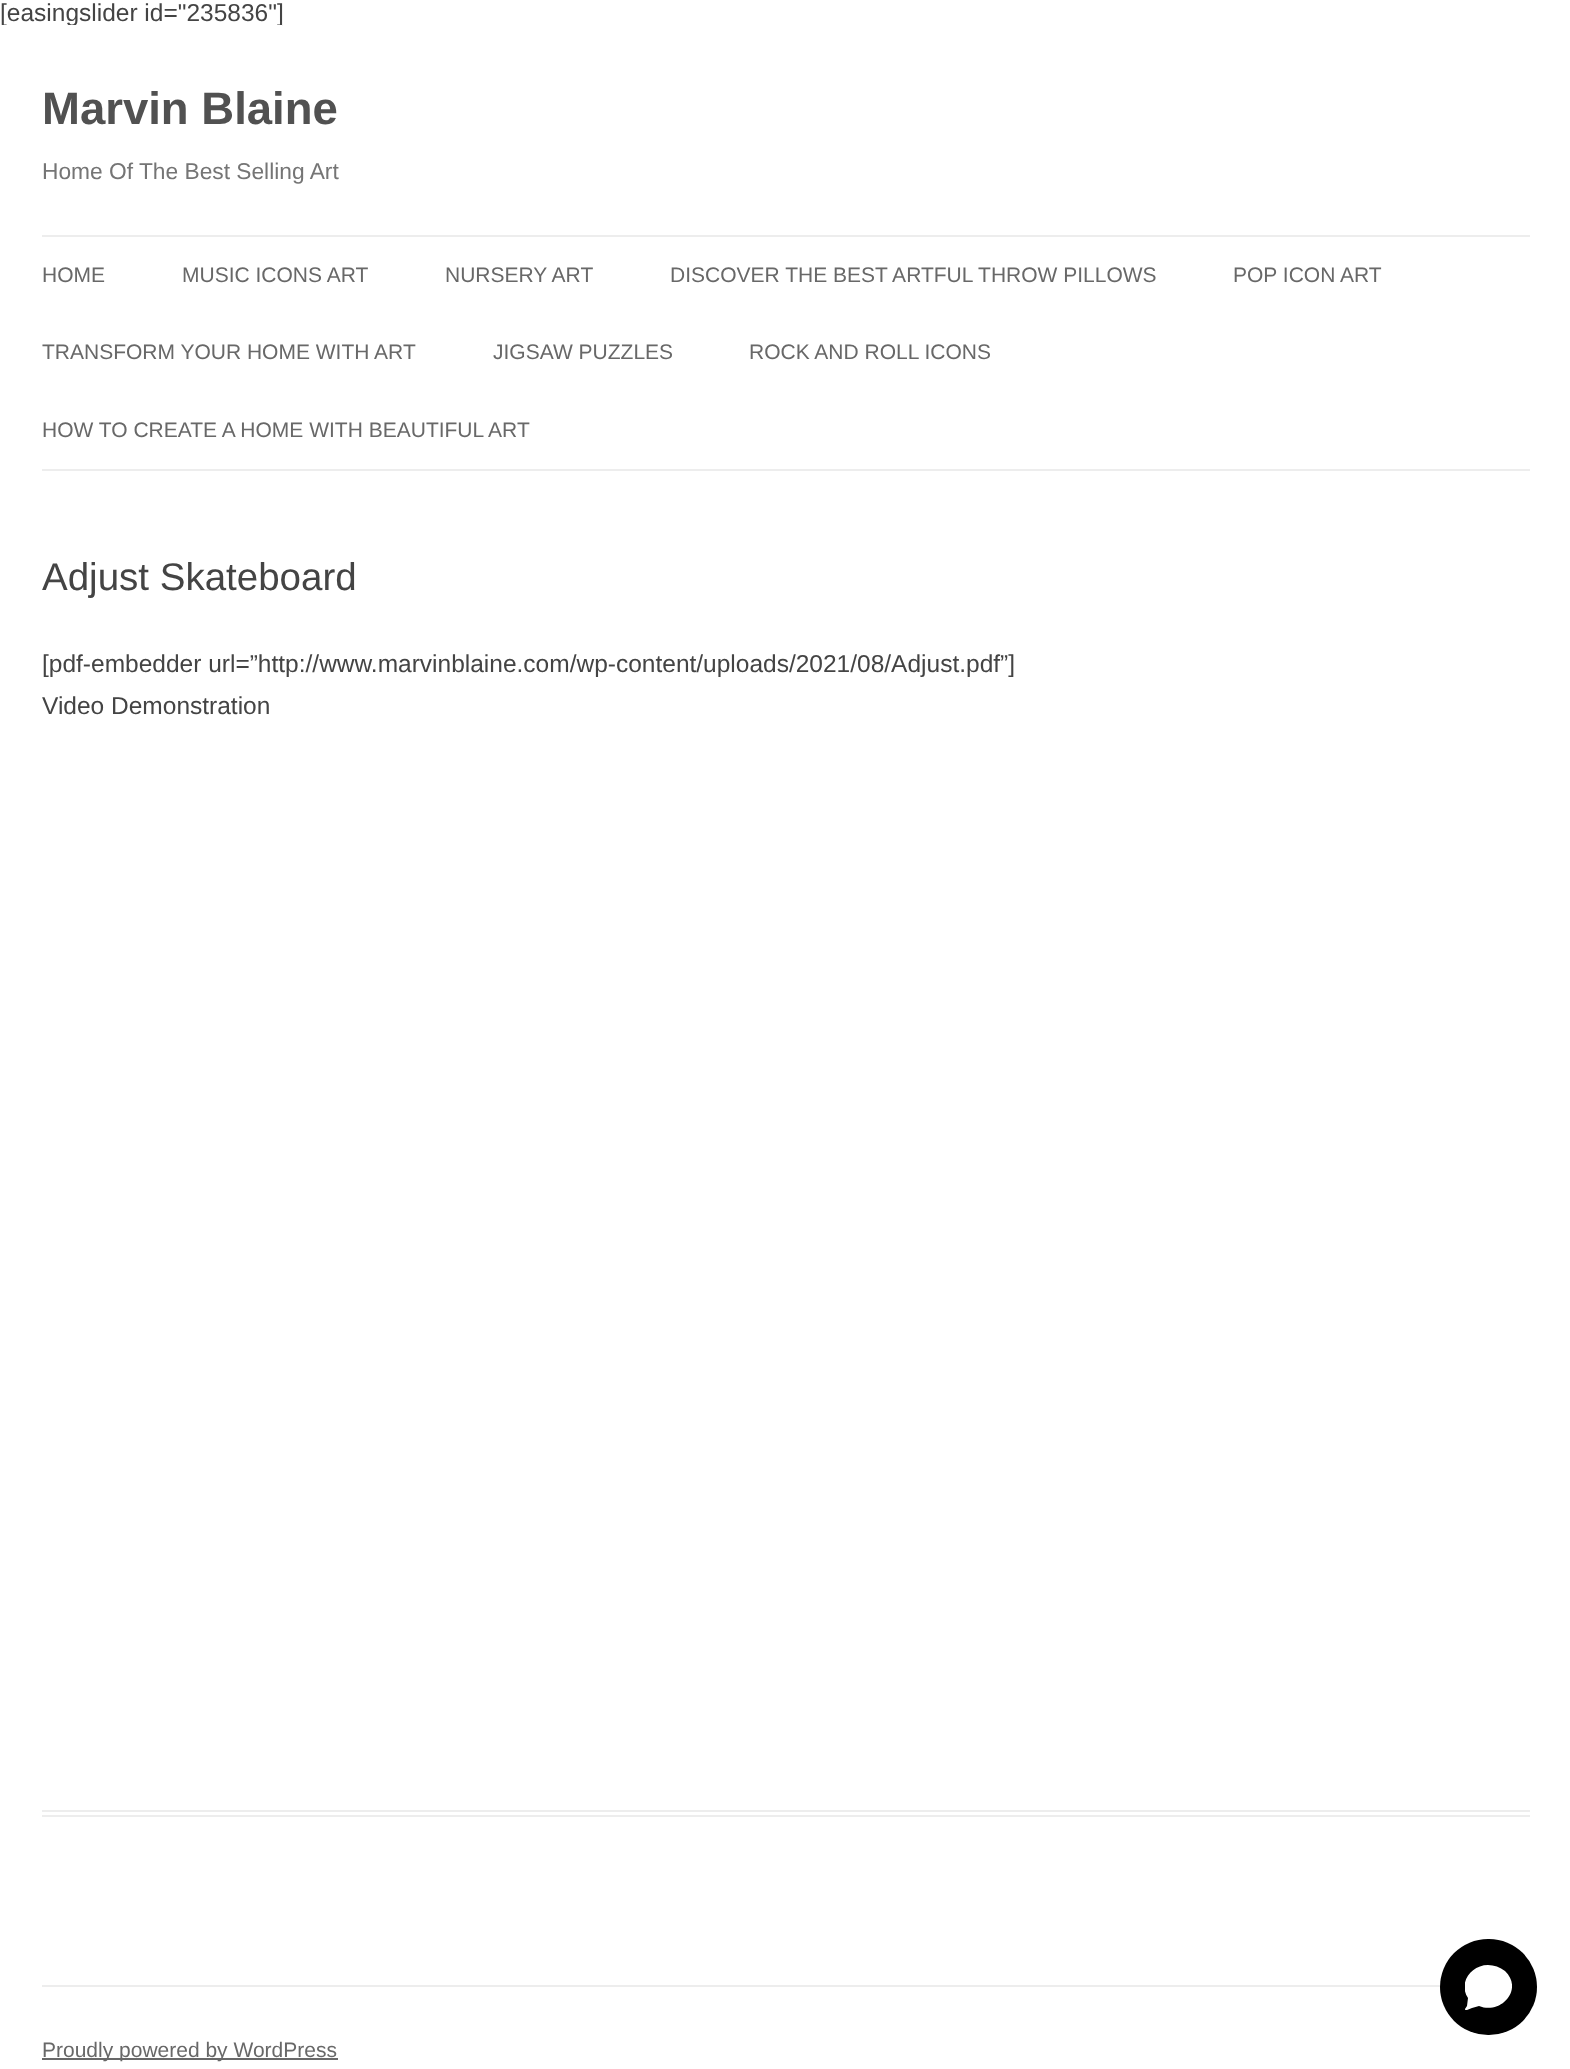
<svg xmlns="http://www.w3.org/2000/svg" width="1570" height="2069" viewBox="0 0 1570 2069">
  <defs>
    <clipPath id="clip1"><rect x="1465" y="1964" width="47" height="47"/></clipPath>
  </defs>
  <rect width="100%" height="100%" fill="rgb(255,255,255)"/>
  <text x="0" y="21" font-family="Liberation Sans" font-size="24.5" fill="rgb(68,68,68)">[easingslider id="235836"]</text>
  <rect x="1" y="25" width="281" height="2" fill="rgb(255,255,255)"/>
  <text x="42" y="124" font-family="Liberation Sans" font-size="45.5" font-weight="bold" fill="rgb(81,81,81)">Marvin Blaine</text>
  <text x="42" y="179" font-family="Liberation Sans" font-size="22.75" fill="rgb(117,117,117)">Home Of The Best Selling Art</text>
  <rect x="42" y="235" width="1488" height="2" fill="rgb(237,237,237)"/>
  <rect x="42" y="469" width="1488" height="2" fill="rgb(237,237,237)"/>
  <g font-family="Liberation Sans" font-size="21" fill="rgb(104,104,104)">
    <text x="42" y="282">HOME</text>
    <text x="182" y="282">MUSIC ICONS ART</text>
    <text x="445" y="282">NURSERY ART</text>
    <text x="670" y="282">DISCOVER THE BEST ARTFUL THROW PILLOWS</text>
    <text x="1233" y="282">POP ICON ART</text>
    <text x="42" y="359">TRANSFORM YOUR HOME WITH ART</text>
    <text x="493" y="359">JIGSAW PUZZLES</text>
    <text x="749" y="359">ROCK AND ROLL ICONS</text>
    <text x="42" y="437">HOW TO CREATE A HOME WITH BEAUTIFUL ART</text>
  </g>
  <rect x="42" y="1810" width="1488" height="2" fill="rgb(237,237,237)"/>
  <rect x="42" y="1815" width="1488" height="2" fill="rgb(237,237,237)"/>
  <text x="42" y="590" font-family="Liberation Sans" font-size="38.5" fill="rgb(68,68,68)">Adjust Skateboard</text>
  <g font-family="Liberation Sans" font-size="24.5" fill="rgb(68,68,68)">
    <text>
      <tspan x="42" y="672">[pdf-embedder url=”http://www.marvinblaine.com/wp-content/uploads/2021/08/Adjust.pdf”]</tspan>
      <tspan x="42" y="714">Video Demonstration</tspan>
    </text>
  </g>
  <rect x="42" y="1985" width="1399" height="2" fill="rgb(237,237,237)"/>
  <rect x="42" y="2058" width="296" height="2" fill="rgb(104,104,104)"/>
  <text x="42" y="2057" font-family="Liberation Sans" font-size="21" fill="rgb(104,104,104)">Proudly powered by WordPress</text>
  <rect x="1440" y="1939" width="97" height="96" rx="48" fill="rgb(0,0,0)"/>
  <g clip-path="url(#clip1)">
    <path d="M1488 1965C1471 1965 1458 1983 1468 1998L1467 2006C1466 2008 1463 2010 1467 2010L1472 2008L1479 2006C1501 2015 1524 1989 1505 1971C1500 1967 1494 1965 1488 1965Z" fill="rgb(255,255,255)"/>
  </g>
</svg>
